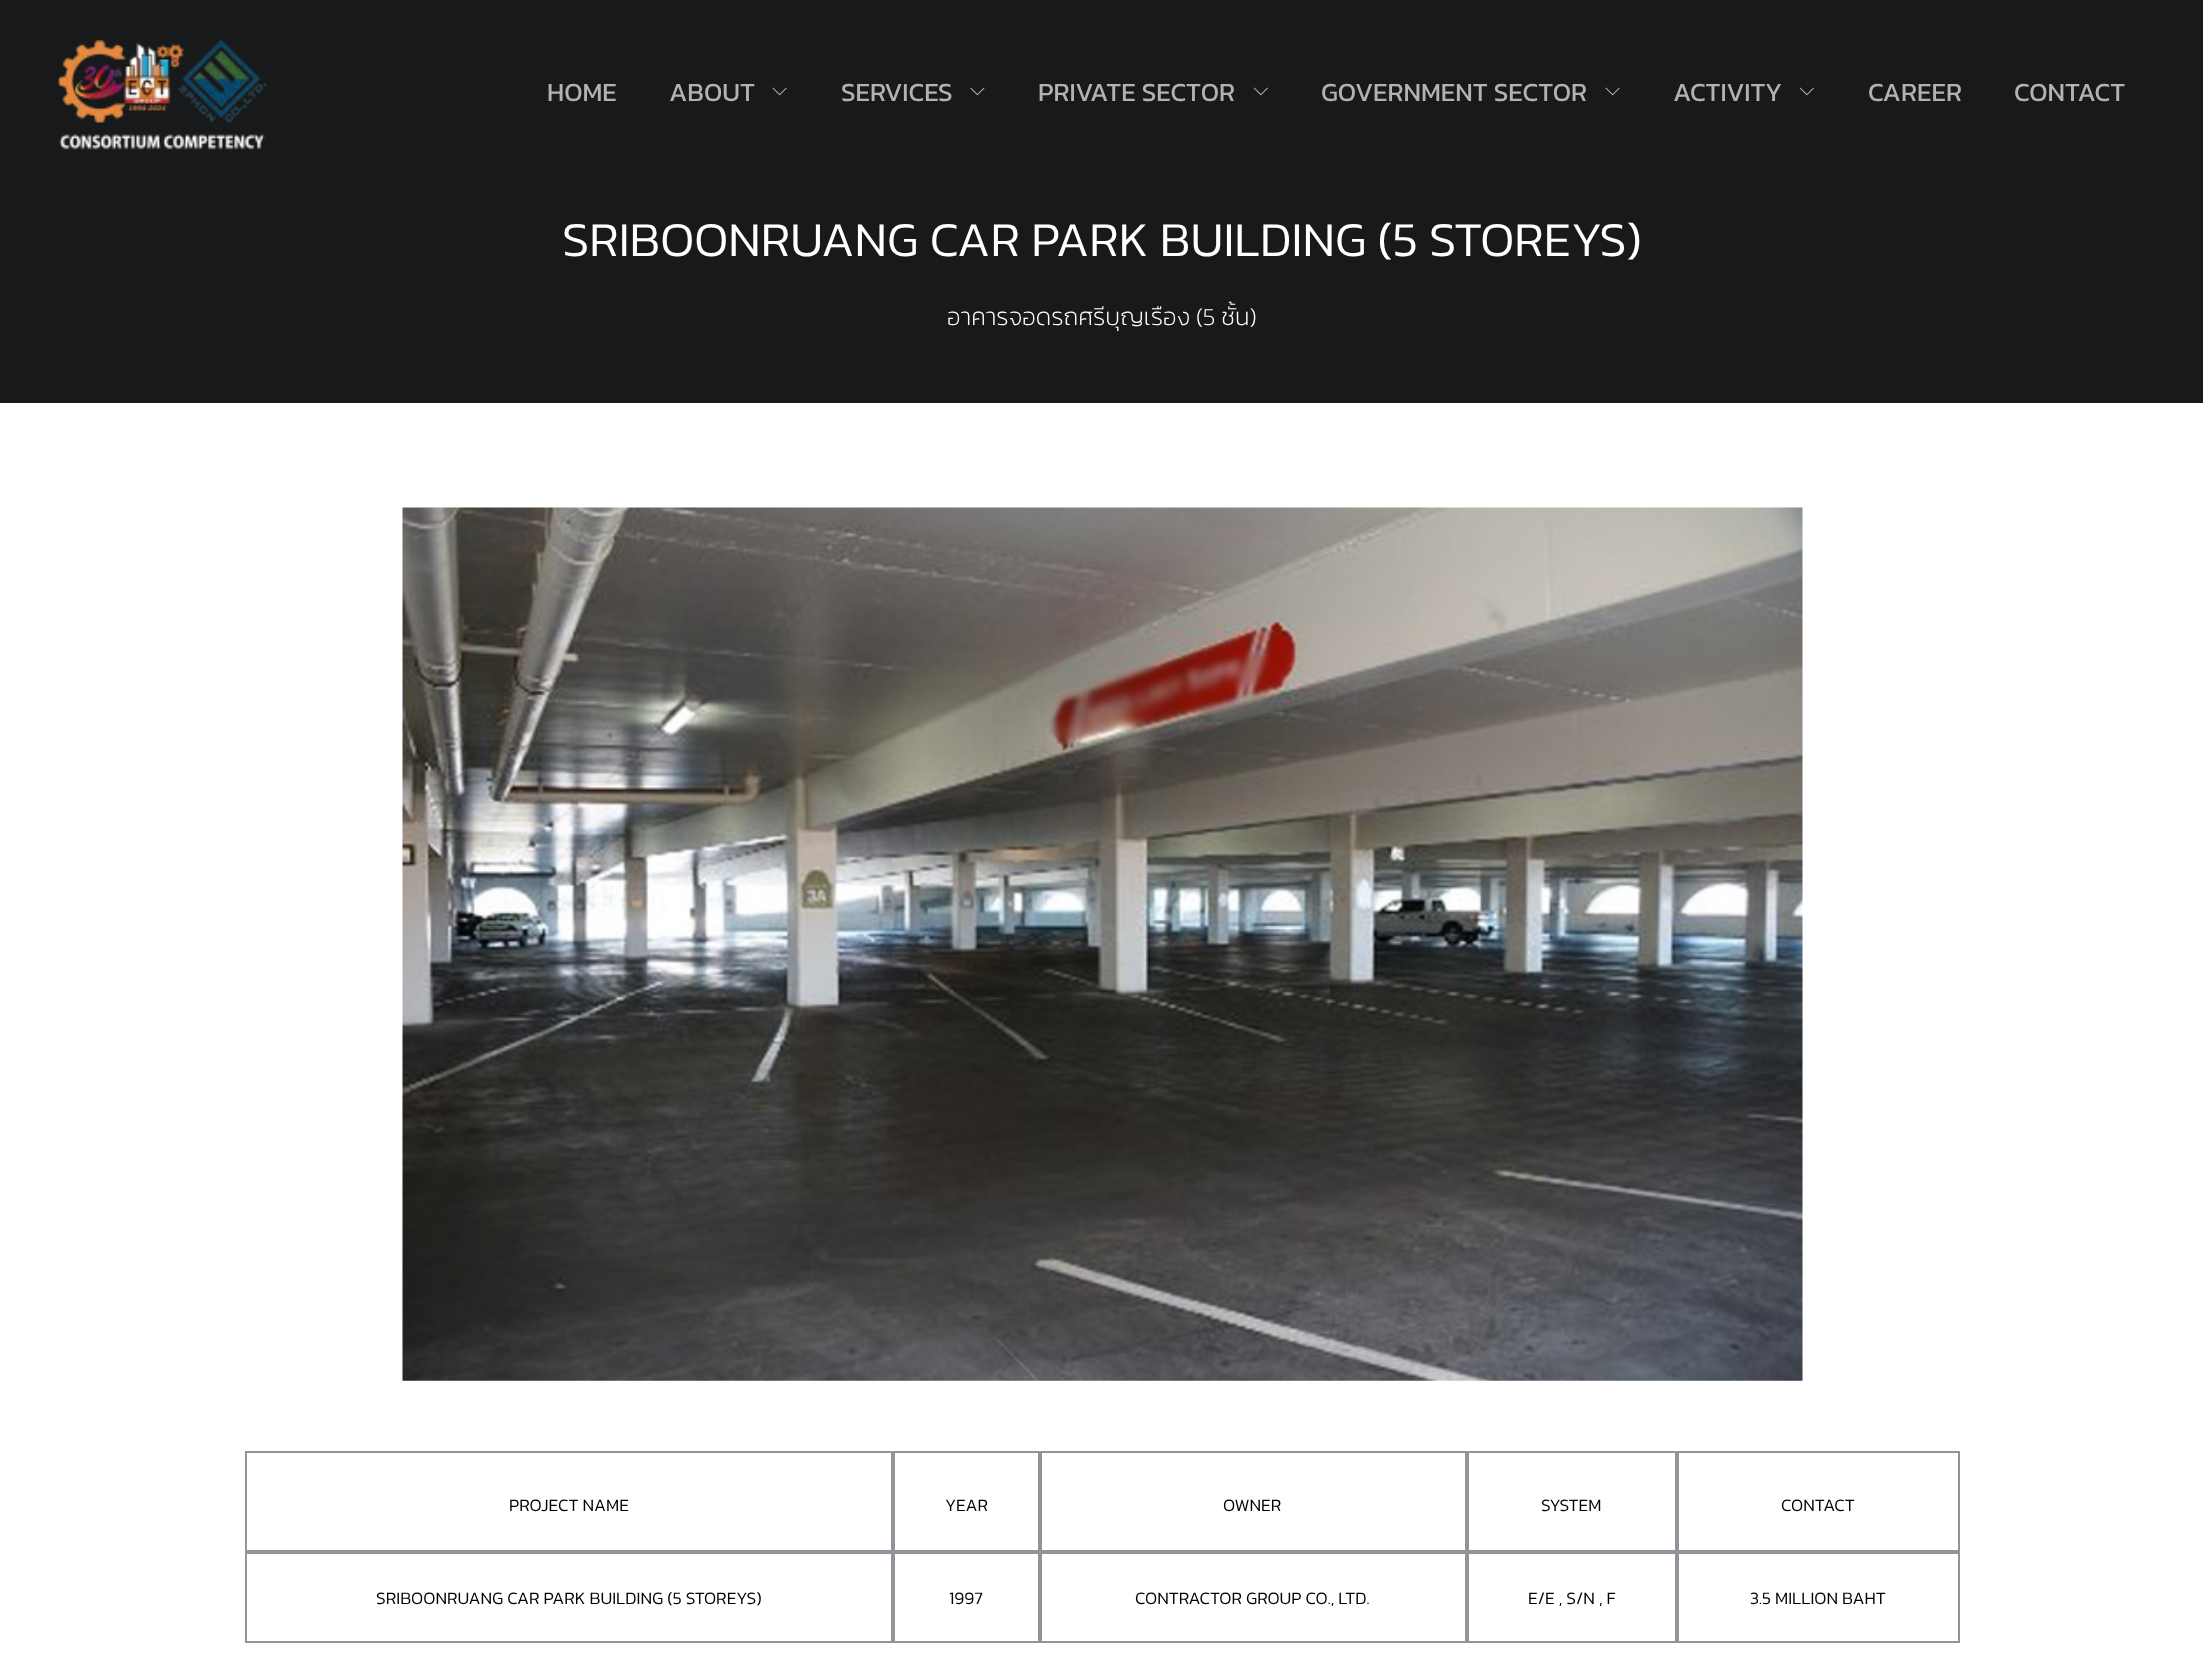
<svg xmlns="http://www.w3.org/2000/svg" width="2203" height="1658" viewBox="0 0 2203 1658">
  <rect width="100%" height="100%" fill="rgb(24,25,26)"/>
  <image x="57" y="39" width="210" height="111" href="pic1.png"/>
  <g font-family="Kanit" font-size="26.25" fill="rgb(178,178,178)">
    <text x="547" y="101">HOME</text>
    <text x="669" y="101">ABOUT</text>
  </g>
  <image x="772" y="87" width="15" height="9" href="pic2.png"/>
  <text x="841" y="101" font-family="Kanit" font-size="26.25" fill="rgb(178,178,178)">SERVICES</text>
  <image x="970" y="87" width="15" height="9" href="pic3.png"/>
  <text x="1038" y="101" font-family="Kanit" font-size="26.25" fill="rgb(178,178,178)">PRIVATE SECTOR</text>
  <image x="1253" y="87" width="15" height="9" href="pic4.png"/>
  <text x="1321" y="101" font-family="Kanit" font-size="26.25" fill="rgb(178,178,178)">GOVERNMENT SECTOR</text>
  <image x="1605" y="87" width="15" height="9" href="pic2.png"/>
  <text x="1673" y="101" font-family="Kanit" font-size="26.25" fill="rgb(178,178,178)">ACTIVITY</text>
  <image x="1799" y="87" width="15" height="9" href="pic4.png"/>
  <g font-family="Kanit" font-size="26.25" fill="rgb(178,178,178)">
    <text x="1868" y="101">CAREER</text>
    <text x="2014" y="101">CONTACT</text>
  </g>
  <text x="562" y="256" font-family="Kanit" font-size="49" font-weight="300" fill="rgb(255,255,255)">SRIBOONRUANG CAR PARK BUILDING (5 STOREYS)</text>
  <text x="947" y="325" font-family="Kanit" font-size="24.5" font-weight="200" fill="rgb(255,255,255)">อาคารจอดรถศรีบุญเรือง (5 ชั้น)</text>
  <rect x="0" y="403" width="2203" height="1255" fill="rgb(255,255,255)"/>
  <image x="402" y="507" width="1401" height="874" href="pic5.png"/>
  <rect x="246" y="1452" width="646" height="99" fill="none" stroke="rgb(145,149,154)" stroke-width="2"/>
  <text x="509" y="1511" font-family="Kanit" font-size="17.5" font-weight="300" fill="rgb(0,0,0)">PROJECT NAME</text>
  <rect x="894" y="1452" width="145" height="99" fill="none" stroke="rgb(145,149,154)" stroke-width="2"/>
  <text x="945" y="1511" font-family="Kanit" font-size="17.5" font-weight="300" fill="rgb(0,0,0)">YEAR</text>
  <rect x="1041" y="1452" width="425" height="99" fill="none" stroke="rgb(145,149,154)" stroke-width="2"/>
  <text x="1223" y="1511" font-family="Kanit" font-size="17.5" font-weight="300" fill="rgb(0,0,0)">OWNER</text>
  <rect x="1468" y="1452" width="208" height="99" fill="none" stroke="rgb(145,149,154)" stroke-width="2"/>
  <text x="1541" y="1511" font-family="Kanit" font-size="17.5" font-weight="300" fill="rgb(0,0,0)">SYSTEM</text>
  <rect x="1678" y="1452" width="281" height="99" fill="none" stroke="rgb(145,149,154)" stroke-width="2"/>
  <text x="1781" y="1511" font-family="Kanit" font-size="17.5" font-weight="300" fill="rgb(0,0,0)">CONTACT</text>
  <rect x="246" y="1553" width="646" height="89" fill="none" stroke="rgb(145,149,154)" stroke-width="2"/>
  <text x="376" y="1604" font-family="Kanit" font-size="17.5" font-weight="300" fill="rgb(0,0,0)">SRIBOONRUANG CAR PARK BUILDING (5 STOREYS)</text>
  <rect x="894" y="1553" width="145" height="89" fill="none" stroke="rgb(145,149,154)" stroke-width="2"/>
  <text x="949" y="1604" font-family="Kanit" font-size="17.5" font-weight="300" fill="rgb(0,0,0)">1997</text>
  <rect x="1041" y="1553" width="425" height="89" fill="none" stroke="rgb(145,149,154)" stroke-width="2"/>
  <text x="1135" y="1604" font-family="Kanit" font-size="17.5" font-weight="300" fill="rgb(0,0,0)">CONTRACTOR GROUP CO., LTD.</text>
  <rect x="1468" y="1553" width="208" height="89" fill="none" stroke="rgb(145,149,154)" stroke-width="2"/>
  <text x="1528" y="1604" font-family="Kanit" font-size="17.5" font-weight="300" fill="rgb(0,0,0)">E/E , S/N , F</text>
  <rect x="1678" y="1553" width="281" height="89" fill="none" stroke="rgb(145,149,154)" stroke-width="2"/>
  <text x="1750" y="1604" font-family="Kanit" font-size="17.5" font-weight="300" fill="rgb(0,0,0)">3.5 MILLION BAHT</text>
</svg>
